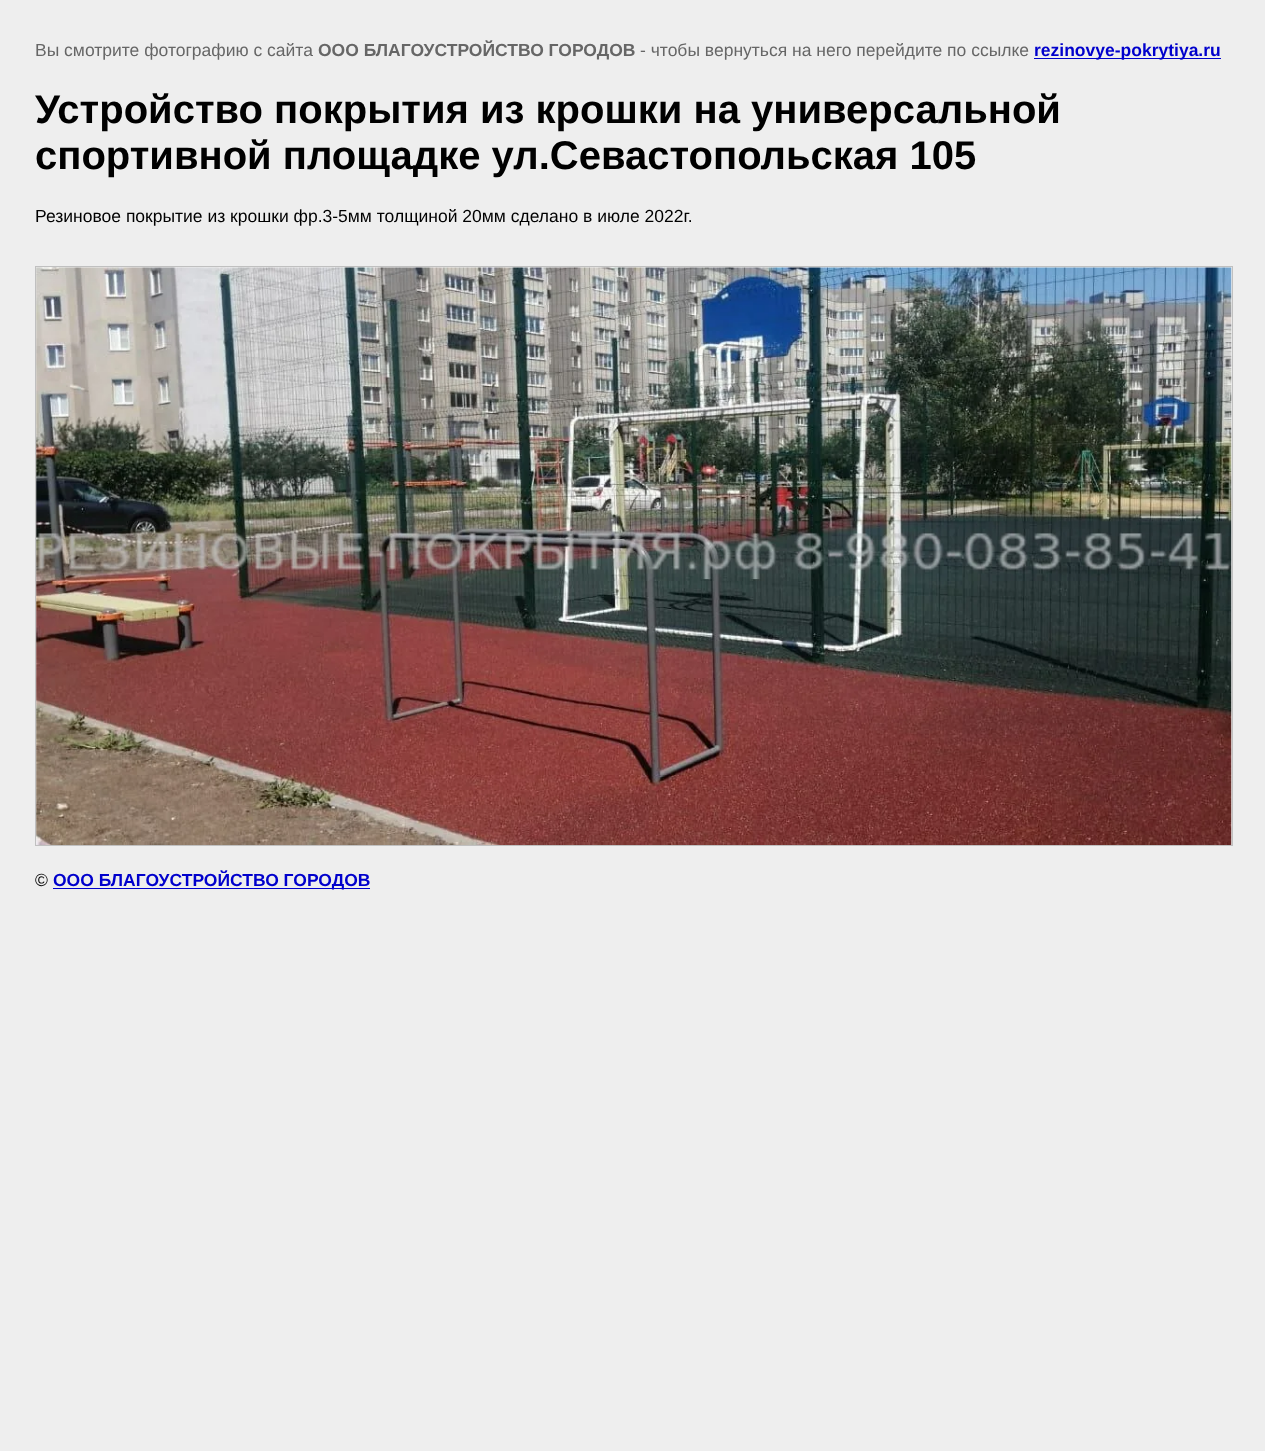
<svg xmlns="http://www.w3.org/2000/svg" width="1265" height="1451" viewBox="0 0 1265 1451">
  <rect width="100%" height="100%" fill="rgb(238,238,238)"/>
  <text x="35" y="56" font-family="Liberation Sans" font-size="17.5" fill="rgb(102,102,102)">Вы смотрите фотографию с сайта</text>
  <text x="318" y="56" font-family="Liberation Sans" font-size="17.5" font-weight="bold" fill="rgb(102,102,102)">ООО БЛАГОУСТРОЙСТВО ГОРОДОВ</text>
  <text x="640" y="56" font-family="Liberation Sans" font-size="17.5" fill="rgb(102,102,102)">- чтобы вернуться на него перейдите по ссылке</text>
  <rect x="1034" y="58" width="187" height="1" fill="rgb(0,0,204)"/>
  <text x="1034" y="56" font-family="Liberation Sans" font-size="17.5" font-weight="bold" fill="rgb(0,0,204)">rezinovye-pokrytiya.ru</text>
  <g font-family="Liberation Sans" font-size="40" font-weight="bold" fill="rgb(0,0,0)">
    <text>
      <tspan x="35" y="123">Устройство покрытия из крошки на универсальной</tspan>
      <tspan x="35" y="169">спортивной площадке ул.Севастопольская 105</tspan>
    </text>
  </g>
  <text x="35" y="222" font-family="Liberation Sans" font-size="17.5" fill="rgb(0,0,0)">Резиновое покрытие из крошки фр.3-5мм толщиной 20мм сделано в июле 2022г.</text>
  <rect x="35.5" y="266.5" width="1197" height="579" fill="none" stroke="rgb(192,192,192)"/>
  <image x="36" y="267" width="1196" height="578" href="pic1.png"/>
  <text x="35" y="886" font-family="Liberation Sans" font-size="17.5" fill="rgb(0,0,0)">©</text>
  <rect x="53" y="888" width="317" height="1" fill="rgb(0,0,204)"/>
  <text x="53" y="886" font-family="Liberation Sans" font-size="17.5" font-weight="bold" fill="rgb(0,0,204)">ООО БЛАГОУСТРОЙСТВО ГОРОДОВ</text>
</svg>
